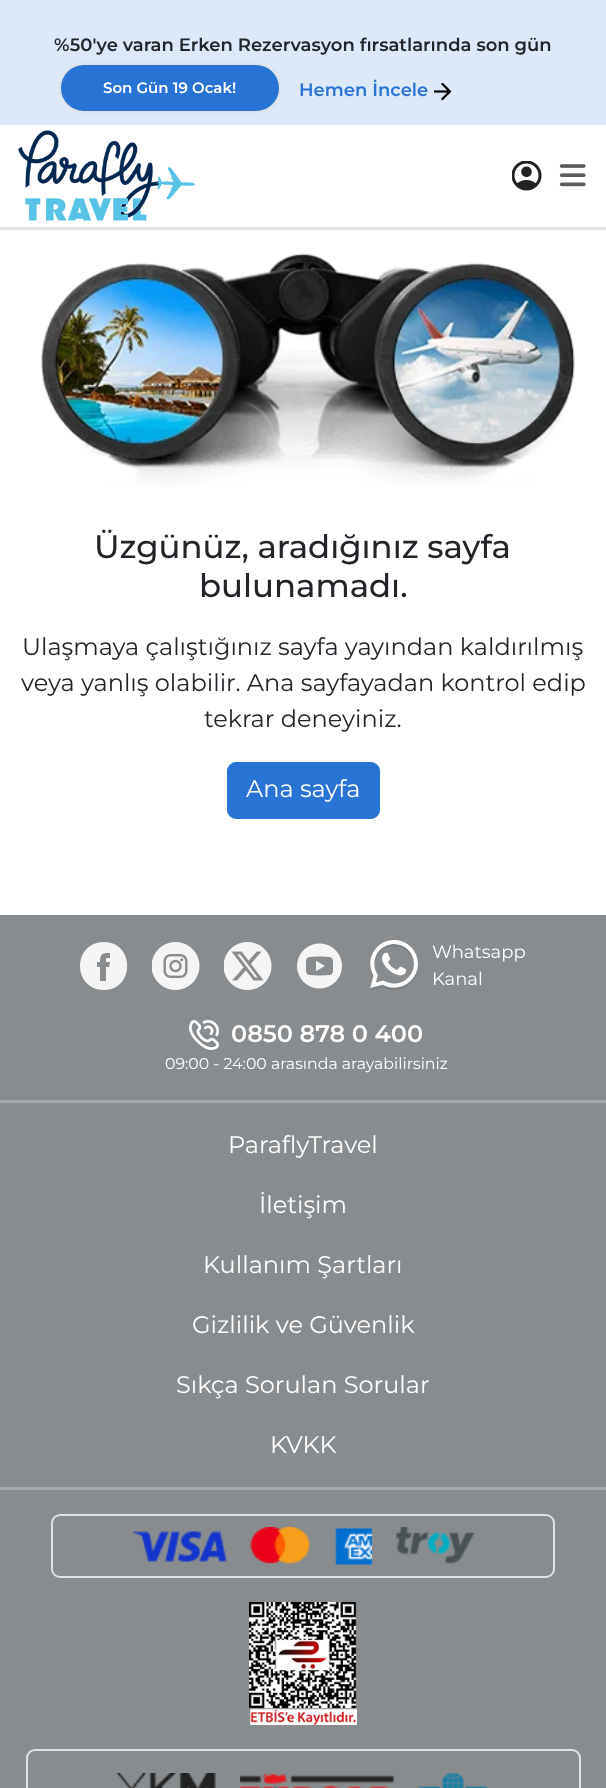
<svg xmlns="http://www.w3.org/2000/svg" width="606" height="1788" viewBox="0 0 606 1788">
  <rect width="100%" height="100%" fill="rgb(255,255,255)"/>
  <rect x="0" y="0" width="606" height="125" fill="rgb(221,233,248)"/>
  <text x="54" y="51" font-family="Montserrat" font-size="18" font-weight="600" fill="rgb(33,37,41)">%50'ye varan Erken Rezervasyon fırsatlarında son gün</text>
  <rect x="60" y="64" width="220" height="48" rx="24" fill="rgb(40,116,212)" stroke="rgb(222,226,230)" stroke-width="2"/>
  <text x="103" y="93" font-family="Montserrat" font-size="15" font-weight="600" fill="rgb(255,255,255)">Son Gün 19 Ocak!</text>
  <text x="299" y="96" font-family="Montserrat" font-size="18" font-weight="600" fill="rgb(40,116,212)">Hemen İncele</text>
  <image x="434" y="83" width="18" height="18" href="pic1.png"/>
  <rect x="0" y="227" width="606" height="3" fill="rgb(222,226,230)"/>
  <image x="18" y="130" width="177" height="91" href="pic2.png"/>
  <image x="512" y="161" width="30" height="30" href="pic3.png"/>
  <image x="559" y="164" width="27" height="23" href="pic4.png"/>
  <image x="41" y="253" width="534" height="234" href="pic5.png"/>
  <g font-family="Montserrat" font-size="32.4" font-weight="500" fill="rgb(33,37,41)">
    <text x="94" y="558">Üzgünüz, aradığınız sayfa</text>
    <text x="199" y="597">bulunamadı.</text>
  </g>
  <g font-family="Montserrat" font-size="24" fill="rgb(33,37,41)">
    <text x="22" y="655">Ulaşmaya çalıştığınız sayfa yayından kaldırılmış</text>
    <text x="21" y="691">veya yanlış olabilir. Ana sayfayadan kontrol edip</text>
    <text x="204" y="727">tekrar deneyiniz.</text>
  </g>
  <rect x="228" y="763" width="151" height="55" rx="8" fill="rgb(40,116,212)" stroke="rgb(40,116,212)" stroke-width="2"/>
  <text x="246" y="797" font-family="Montserrat" font-size="24" fill="rgb(255,255,255)">Ana sayfa</text>
  <rect x="0" y="915" width="606" height="873" fill="rgb(137,140,143)"/>
  <path d="M104 942C72 942 72 990 104 990C135 990 135 942 104 942ZM109 967H106V981H100V967H97V962H100C100 954 102 953 110 953V958C106 958 106 957 106 962H110Z" fill="rgb(245,245,245)"/>
  <image x="152" y="942" width="48" height="48" href="pic6.png"/>
  <image x="224" y="942" width="48" height="48" href="pic7.png"/>
  <image x="297" y="943" width="45" height="46" href="pic8.png"/>
  <image x="370" y="940" width="48" height="50" href="pic9.png"/>
  <g font-family="Montserrat" font-size="18" fill="rgb(255,255,255)">
    <text>
      <tspan x="432" y="958">Whatsapp</tspan>
      <tspan x="432" y="985">Kanal</tspan>
    </text>
  </g>
  <image x="189" y="1020" width="30" height="30" href="pic10.png"/>
  <text x="231" y="1042" font-family="Montserrat" font-size="24" font-weight="600" fill="rgb(255,255,255)">0850 878 0 400</text>
  <text x="165" y="1069" font-family="Montserrat" font-size="15.75" fill="rgb(255,255,255)">09:00 - 24:00 arasında arayabilirsiniz</text>
  <rect x="0" y="1100" width="606" height="3" fill="rgb(167,169,171)"/>
  <g font-family="Montserrat" font-size="24" fill="rgb(255,255,255)">
    <text x="228" y="1153">ParaflyTravel</text>
    <text x="259" y="1213">İletişim</text>
    <text x="203" y="1273">Kullanım Şartları</text>
    <text x="192" y="1333">Gizlilik ve Güvenlik</text>
    <text x="176" y="1393">Sıkça Sorulan Sorular</text>
    <text x="270" y="1453">KVKK</text>
  </g>
  <rect x="0" y="1487" width="606" height="3" fill="rgb(167,169,171)"/>
  <rect x="52" y="1515" width="502" height="62" rx="8" fill="none" stroke="rgb(222,226,230)" stroke-width="2"/>
  <image x="132" y="1531" width="95" height="31" href="pic11.png"/>
  <image x="250" y="1527" width="61" height="37" href="pic12.png"/>
  <image x="334" y="1528" width="38" height="37" href="pic13.png"/>
  <image x="396" y="1527" width="79" height="37" href="pic14.png"/>
  <image x="249" y="1602" width="108" height="123" href="pic15.png"/>
  <rect x="27" y="1750" width="553" height="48" rx="8" fill="none" stroke="rgb(222,226,230)" stroke-width="2"/>
  <image x="117" y="1773" width="99" height="15" href="pic16.png"/>
  <image x="240" y="1773" width="155" height="15" href="pic17.png"/>
  <image x="418" y="1773" width="70" height="15" href="pic18.png"/>
</svg>
